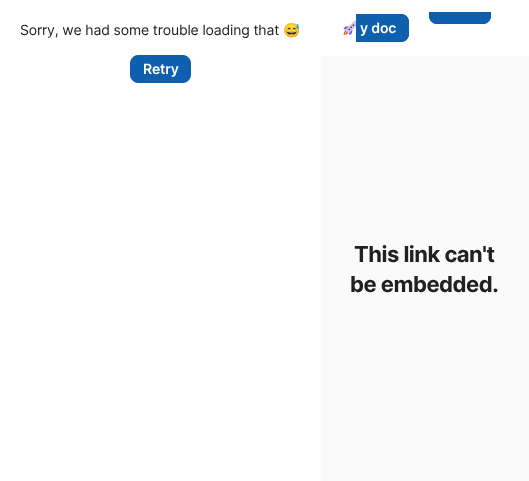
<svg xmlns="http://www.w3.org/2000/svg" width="529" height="481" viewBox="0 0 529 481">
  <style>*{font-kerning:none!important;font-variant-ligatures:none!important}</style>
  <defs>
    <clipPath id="clip1"><rect x="356" y="12" width="155" height="32"/></clipPath>
  </defs>
  <rect width="100%" height="100%" fill="rgb(255,255,255)"/>
  <text x="20" y="35" font-family="Inter" font-size="14" letter-spacing="-0.15" fill="rgb(33,33,33)">Sorry, we had some trouble loading that</text>
  <text x="283" y="35" font-family="Noto Color Emoji" font-size="14" letter-spacing="-0.15" fill="rgb(33,33,33)">😅</text>
  <rect x="130.5" y="55.5" width="60" height="27" rx="7.5" fill="rgb(15,95,175)" stroke="rgb(15,95,175)"/>
  <text x="143" y="74" font-family="Inter" font-size="14" font-weight="600" letter-spacing="-0.15" fill="rgb(255,255,255)">Retry</text>
  <image x="343" y="20" width="13" height="16" href="pic1.png"/>
  <path d="M429 12H491V16C491 20.5 487.5 24 483 24H437C432.5 24 429 20.5 429 16Z" fill="rgb(15,95,175)"/>
  <g clip-path="url(#clip1)">
    <rect x="429.5" y="-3.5" width="61" height="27" rx="7.5" fill="none" stroke="rgb(15,95,175)"/>
  </g>
  <path d="M356 14H401C405.5 14 409 17.5 409 22V34C409 38.5 405.5 42 401 42H356Z" fill="rgb(15,95,175)"/>
  <g clip-path="url(#clip1)">
    <rect x="320.5" y="14.5" width="88" height="27" rx="7.5" fill="none" stroke="rgb(15,95,175)"/>
  </g>
  <text x="360" y="33" font-family="Inter" font-size="14" font-weight="600" letter-spacing="-0.15" fill="rgb(255,255,255)">y doc</text>
  <rect x="321" y="56" width="208" height="425" fill="rgb(250,250,250)"/>
  <g font-family="Inter" font-size="22" font-weight="bold" letter-spacing="-0.5" fill="rgb(33,33,33)">
    <text x="354" y="262">This link can't</text>
    <text x="350" y="292">be embedded.</text>
  </g>
</svg>
